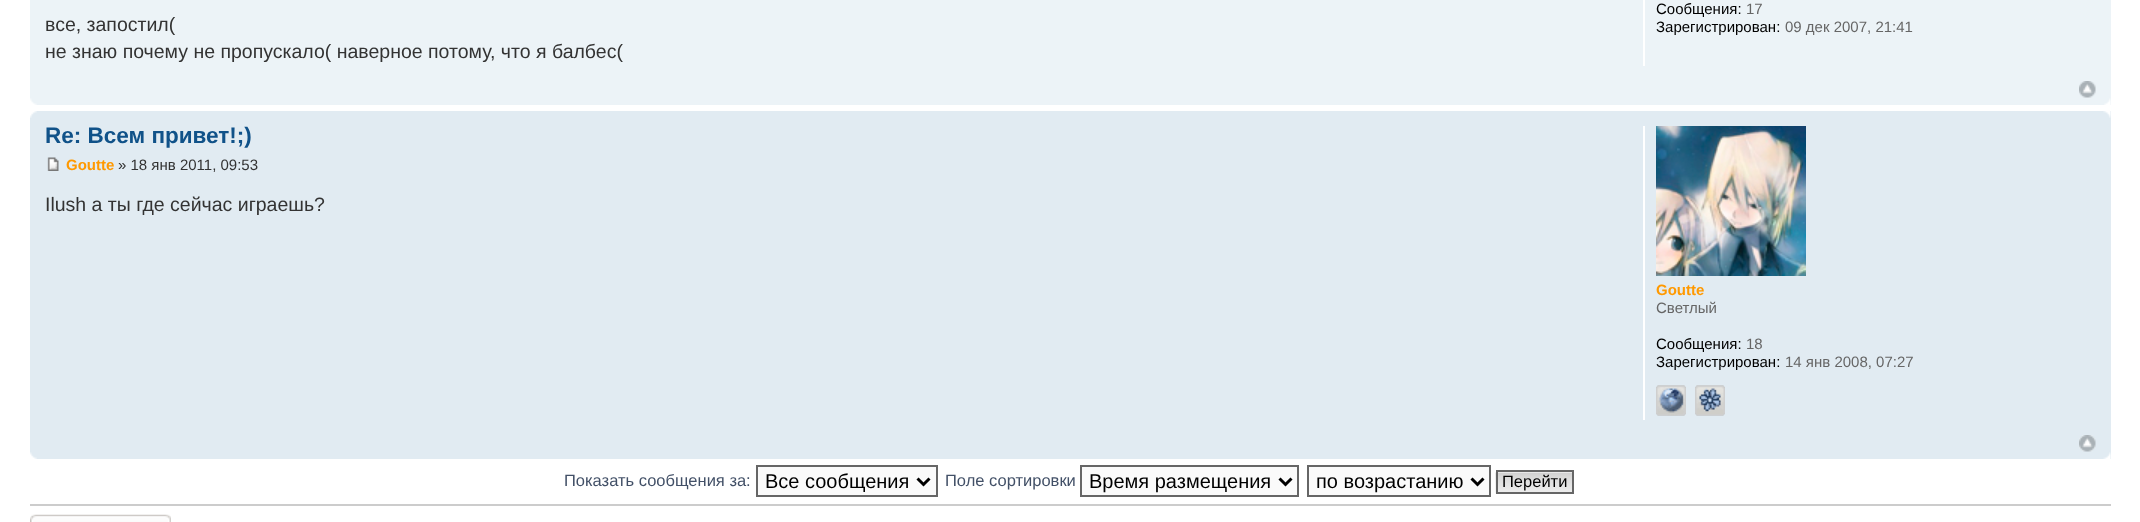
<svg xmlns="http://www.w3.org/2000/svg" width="2140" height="522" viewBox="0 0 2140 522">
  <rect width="100%" height="100%" fill="rgb(255,255,255)"/>
  <rect x="30" y="0" width="2081" height="105" fill="rgb(236,243,247)"/>
  <g font-family="Liberation Sans" font-size="19.5" fill="rgb(51,51,51)">
    <text>
      <tspan x="45" y="31">все, запостил(</tspan>
      <tspan x="45" y="58">не знаю почему не пропускало( наверное потому, что я балбес(</tspan>
    </text>
  </g>
  <rect x="1643" y="0" width="2" height="66" fill="rgb(255,255,255)"/>
  <text x="1656" y="14" font-family="Liberation Sans" font-size="15" fill="rgb(0,0,0)">Сообщения:</text>
  <text x="1746" y="14" font-family="Liberation Sans" font-size="15" fill="rgb(102,102,102)">17</text>
  <text x="1656" y="32" font-family="Liberation Sans" font-size="15" fill="rgb(0,0,0)">Зарегистрирован:</text>
  <text x="1785" y="32" font-family="Liberation Sans" font-size="15" fill="rgb(102,102,102)">09 дек 2007, 21:41</text>
  <image x="2079" y="81" width="17" height="17" href="pic1.png"/>
  <image x="30" y="98" width="7" height="7" href="pic2.png"/>
  <image x="2104" y="98" width="7" height="7" href="pic3.png"/>
  <rect x="30" y="111" width="2081" height="348" fill="rgb(225,235,242)"/>
  <image x="30" y="111" width="7" height="7" href="pic4.png"/>
  <image x="2103" y="111" width="8" height="7" href="pic5.png"/>
  <text x="45" y="143" font-family="Liberation Sans" font-size="22.5" font-weight="bold" fill="rgb(16,82,137)">Re: Всем привет!;)</text>
  <image x="47" y="157" width="12" height="14" href="pic6.png"/>
  <text x="66" y="170" font-family="Liberation Sans" font-size="15" font-weight="bold" fill="rgb(255,153,0)">Goutte</text>
  <text x="118" y="170" font-family="Liberation Sans" font-size="15" fill="rgb(51,51,51)">» 18 янв 2011, 09:53</text>
  <text x="45" y="211" font-family="Liberation Sans" font-size="19.5" fill="rgb(51,51,51)">Ilush а ты где сейчас играешь?</text>
  <rect x="1643" y="126" width="2" height="294" fill="rgb(255,255,255)"/>
  <image x="1656" y="126" width="150" height="150" href="pic7.png"/>
  <text x="1656" y="295" font-family="Liberation Sans" font-size="15" font-weight="bold" fill="rgb(255,153,0)">Goutte</text>
  <text x="1656" y="313" font-family="Liberation Sans" font-size="15" fill="rgb(102,102,102)">Светлый</text>
  <text x="1656" y="349" font-family="Liberation Sans" font-size="15" fill="rgb(0,0,0)">Сообщения:</text>
  <text x="1746" y="349" font-family="Liberation Sans" font-size="15" fill="rgb(102,102,102)">18</text>
  <text x="1656" y="367" font-family="Liberation Sans" font-size="15" fill="rgb(0,0,0)">Зарегистрирован:</text>
  <text x="1785" y="367" font-family="Liberation Sans" font-size="15" fill="rgb(102,102,102)">14 янв 2008, 07:27</text>
  <image x="1656" y="385" width="30" height="31" href="pic8.png"/>
  <image x="1656" y="385" width="30" height="31" href="pic9.png"/>
  <image x="1695" y="385" width="30" height="31" href="pic10.png"/>
  <image x="1695" y="385" width="30" height="31" href="pic11.png"/>
  <image x="2079" y="435" width="17" height="17" href="pic12.png"/>
  <image x="30" y="452" width="7" height="7" href="pic13.png"/>
  <image x="2103" y="452" width="8" height="7" href="pic14.png"/>
  <text x="564" y="486" font-family="Liberation Sans" font-size="16.5" fill="rgb(66,80,103)">Показать сообщения за:</text>
  <rect x="757" y="466" width="180" height="30" fill="rgb(250,250,250)" stroke="rgb(102,102,102)" stroke-width="2"/>
  <path d="M917.5 478.5L923.5 484.5L929.5 478.5" fill="none" stroke="rgb(0,0,0)" stroke-width="3"/>
  <text x="765" y="488" font-family="Liberation Sans" font-size="20" fill="rgb(0,0,0)">Все сообщения</text>
  <text x="945" y="486" font-family="Liberation Sans" font-size="16.5" fill="rgb(66,80,103)">Поле сортировки</text>
  <rect x="1081" y="466" width="217" height="30" fill="rgb(250,250,250)" stroke="rgb(102,102,102)" stroke-width="2"/>
  <path d="M1279.5 478.5L1285.5 484.5L1291.5 478.5" fill="none" stroke="rgb(0,0,0)" stroke-width="3"/>
  <text x="1089" y="488" font-family="Liberation Sans" font-size="20" fill="rgb(0,0,0)">Время размещения</text>
  <rect x="1308" y="466" width="182" height="30" fill="rgb(250,250,250)" stroke="rgb(102,102,102)" stroke-width="2"/>
  <path d="M1471.5 478.5L1477.5 484.5L1483.5 478.5" fill="none" stroke="rgb(0,0,0)" stroke-width="3"/>
  <text x="1316" y="488" font-family="Liberation Sans" font-size="20" fill="rgb(0,0,0)">по возрастанию</text>
  <image x="1495" y="471" width="77" height="23" href="pic15.png"/>
  <rect x="1497" y="471" width="76" height="22" fill="none" stroke="rgb(102,102,102)" stroke-width="2"/>
  <text x="1502" y="487" font-family="Liberation Sans" font-size="16.5" fill="rgb(0,0,0)">Перейти</text>
  <rect x="30" y="504" width="2081" height="2" fill="rgb(204,204,204)"/>
  <image x="30" y="514" width="141" height="8" href="pic16.png"/>
</svg>
